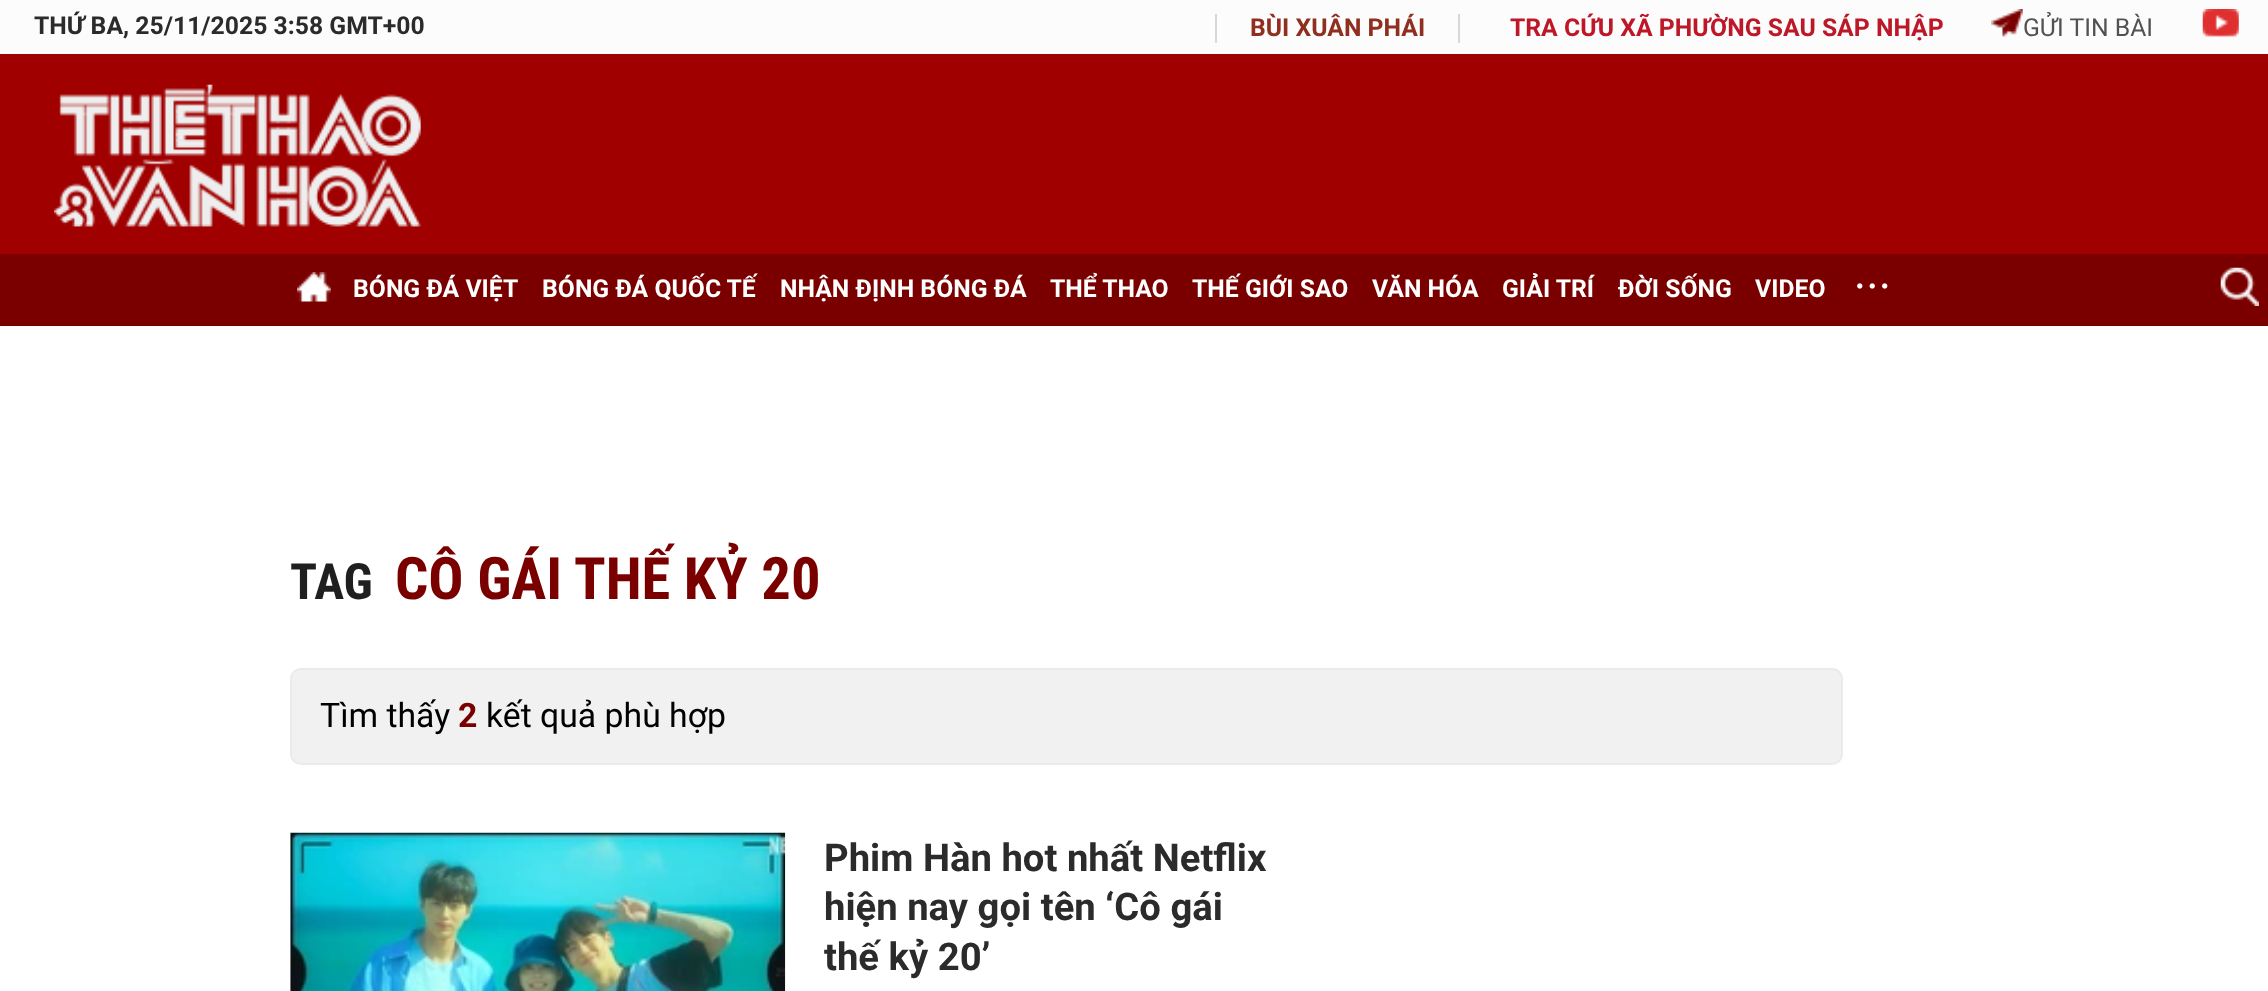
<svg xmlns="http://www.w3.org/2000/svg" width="2268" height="991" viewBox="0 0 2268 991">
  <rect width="100%" height="100%" fill="rgb(255,255,255)"/>
  <rect x="0" y="0" width="2268" height="54" fill="rgb(252,252,252)"/>
  <text x="34" y="34" font-family="Roboto" font-size="24.75" font-weight="bold" fill="rgb(43,43,43)">THỨ BA, 25/11/2025 3:58 GMT+00</text>
  <rect x="1458" y="14" width="2" height="29" fill="rgb(216,216,216)"/>
  <rect x="1215" y="14" width="2" height="29" fill="rgb(216,216,216)"/>
  <text x="1250" y="36" font-family="Roboto" font-size="24.75" font-weight="bold" fill="rgb(144,47,31)">BÙI XUÂN PHÁI</text>
  <text x="1510" y="36" font-family="Roboto" font-size="24.75" font-weight="bold" fill="rgb(189,23,40)">TRA CỨU XÃ PHƯỜNG SAU SÁP NHẬP</text>
  <image x="1991" y="9" width="32" height="28" href="pic1.png"/>
  <text x="2023" y="36" font-family="Roboto" font-size="24.75" fill="rgb(82,82,82)">GỬI TIN BÀI</text>
  <image x="2202" y="9" width="37" height="28" href="pic2.png"/>
  <rect x="0" y="54" width="2268" height="200" fill="rgb(161,0,0)"/>
  <image x="54" y="84" width="367" height="143" href="pic3.png"/>
  <rect x="0" y="254" width="2268" height="72" fill="rgb(122,0,0)"/>
  <image x="297" y="272" width="34" height="30" href="pic4.png"/>
  <g font-family="Roboto" font-size="24.75" font-weight="bold" fill="rgb(255,255,255)">
    <text x="353" y="297">BÓNG ĐÁ VIỆT</text>
    <text x="542" y="297">BÓNG ĐÁ QUỐC TẾ</text>
    <text x="780" y="297">NHẬN ĐỊNH BÓNG ĐÁ</text>
    <text x="1050" y="297">THỂ THAO</text>
    <text x="1192" y="297">THẾ GIỚI SAO</text>
    <text x="1372" y="297">VĂN HÓA</text>
    <text x="1502" y="297">GIẢI TRÍ</text>
    <text x="1618" y="297">ĐỜI SỐNG</text>
    <text x="1755" y="297">VIDEO</text>
  </g>
  <image x="1857" y="283" width="31" height="6" href="pic5.png"/>
  <image x="2220" y="267" width="39" height="39" href="pic6.png"/>
  <text x="290" y="599" font-family="Roboto Condensed" font-size="50" font-weight="bold" fill="rgb(31,31,31)">TAG</text>
  <text x="395" y="599" font-family="Roboto Condensed" font-size="58.5" font-weight="bold" fill="rgb(122,0,0)">CÔ GÁI THẾ KỶ 20</text>
  <rect x="291" y="669" width="1551" height="95" rx="10" fill="rgb(241,241,241)" stroke="rgb(235,235,235)" stroke-width="2"/>
  <text x="320" y="727" font-family="Roboto" font-size="33.75" fill="rgb(0,0,0)">Tìm thấy</text>
  <text x="458" y="727" font-family="Roboto" font-size="33.75" font-weight="bold" fill="rgb(122,0,0)">2</text>
  <text x="486" y="727" font-family="Roboto" font-size="33.75" fill="rgb(0,0,0)">kết quả phù hợp</text>
  <image x="290" y="832" width="496" height="159" href="pic7.png"/>
  <g font-family="Roboto" font-size="38.25" font-weight="bold" fill="rgb(43,43,43)">
    <text>
      <tspan x="824" y="871">Phim Hàn hot nhất Netflix</tspan>
      <tspan x="824" y="920">hiện nay gọi tên ‘Cô gái</tspan>
      <tspan x="824" y="970">thế kỷ 20’</tspan>
    </text>
  </g>
</svg>
